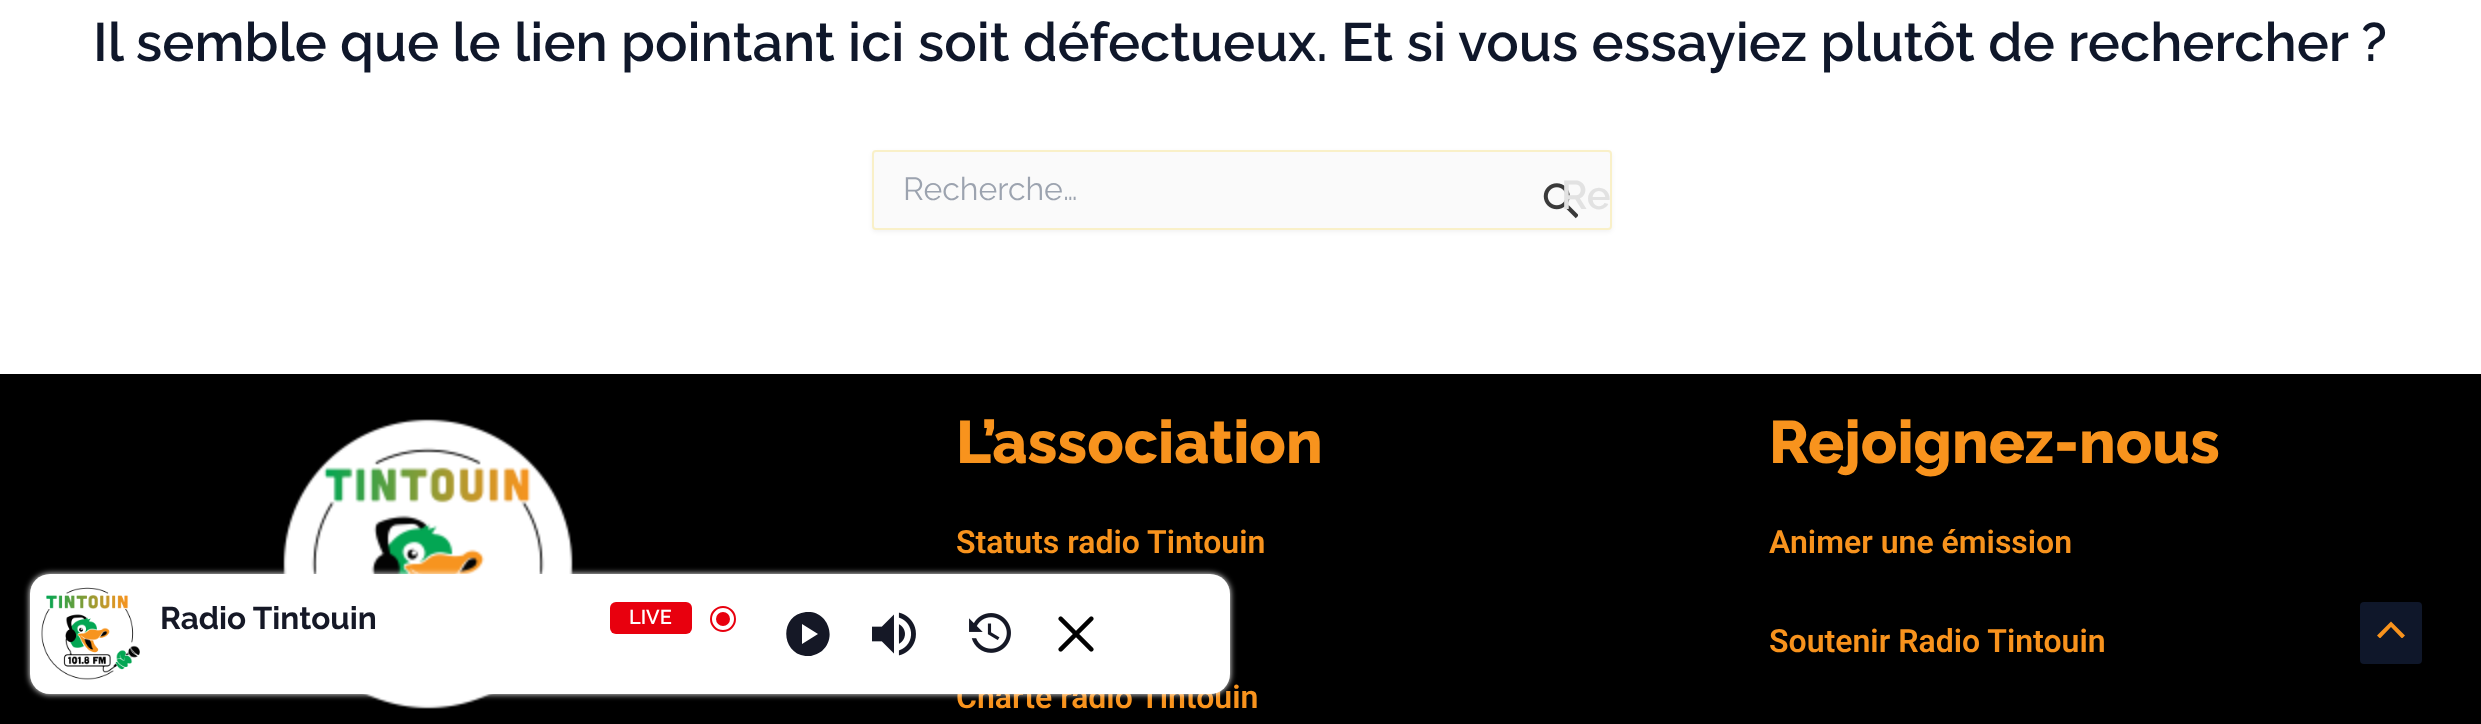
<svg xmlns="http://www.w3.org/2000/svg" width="2481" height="724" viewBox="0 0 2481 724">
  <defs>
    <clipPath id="clip1"><rect x="2366" y="620" width="48" height="18"/></clipPath>
    <clipPath id="clip2"><rect x="786" y="612" width="44" height="44"/></clipPath>
  </defs>
  <rect width="100%" height="100%" fill="rgb(255,255,255)"/>
  <text x="93" y="61" font-family="Raleway" font-size="54" font-weight="600" fill="rgb(15,23,42)">Il semble que le lien pointant ici soit défectueux. Et si vous essayiez plutôt de rechercher ?</text>
  <rect x="872" y="152" width="740" height="80" rx="4" fill="rgba(0,0,0,0.05)" filter="blur(2px)"/>
  <rect x="873" y="151" width="738" height="78" rx="3" fill="rgb(250,250,250)" stroke="rgb(249,240,200)" stroke-width="2"/>
  <text x="903" y="200" font-family="Raleway" font-size="32" fill="rgb(156,163,175)">Recherche…</text>
  <image x="1543" y="183" width="35" height="36" href="pic1.png"/>
  <text x="1561" y="209" font-family="Raleway" font-size="40" font-weight="600" fill="rgb(226,226,226)">Re</text>
  <rect x="0" y="374" width="2481" height="350" fill="rgb(0,0,0)"/>
  <image x="283" y="419" width="290" height="290" href="pic2.png"/>
  <text x="956" y="463" font-family="Raleway" font-size="60" font-weight="800" fill="rgb(248,147,29)">L’association</text>
  <g font-family="Roboto" font-size="32" font-weight="600" fill="rgb(248,147,29)">
    <text x="956" y="553">Statuts radio Tintouin</text>
    <text x="956" y="708">Charte radio Tintouin</text>
  </g>
  <text x="1769" y="463" font-family="Raleway" font-size="60" font-weight="800" fill="rgb(248,147,29)">Rejoignez-nous</text>
  <g font-family="Roboto" font-size="32" font-weight="600" fill="rgb(248,147,29)">
    <text x="1769" y="553">Animer une émission</text>
    <text x="1769" y="652">Soutenir Radio Tintouin</text>
  </g>
  <rect x="2360" y="602" width="62" height="62" rx="4" fill="rgb(15,23,42)"/>
  <g clip-path="url(#clip1)">
    <path d="M2405 635.5L2391 621.5L2377 635.5L2380 638.5L2391 627L2402 638.5Z" fill="rgb(248,147,29)"/>
  </g>
  <rect x="30" y="574" width="1200" height="120" rx="20" fill="rgb(255,255,255)" filter="blur(3px)"/>
  <rect x="30" y="574" width="1200" height="120" rx="20" fill="rgb(255,255,255)"/>
  <image x="41" y="587" width="99" height="93" href="pic3.png"/>
  <text x="160" y="629" font-family="Raleway" font-size="31.5" font-weight="bold" fill="rgb(21,24,38)">Radio Tintouin</text>
  <rect x="610" y="602" width="82" height="32" rx="6" fill="rgb(232,0,14)"/>
  <text x="629" y="624" font-family="Raleway" font-size="20" font-weight="600" fill="rgb(255,255,255)">LIVE</text>
  <circle cx="723" cy="619" r="7" fill="rgb(232,0,14)"/>
  <circle cx="723" cy="619" r="12" fill="none" stroke="rgb(232,0,14)" stroke-width="2"/>
  <g clip-path="url(#clip2)">
    <path d="M806 612C777 615 781 659 811 656C815 655 819 653 822 651C838 637 827 610 806 612ZM810 629L818 634L802 644V624Z" fill="rgb(21,24,38)"/>
  </g>
  <image x="872" y="612" width="44" height="44" href="pic4.png"/>
  <image x="969" y="613" width="42" height="40" href="pic5.png"/>
  <image x="1058" y="616" width="36" height="36" href="pic6.png"/>
</svg>
